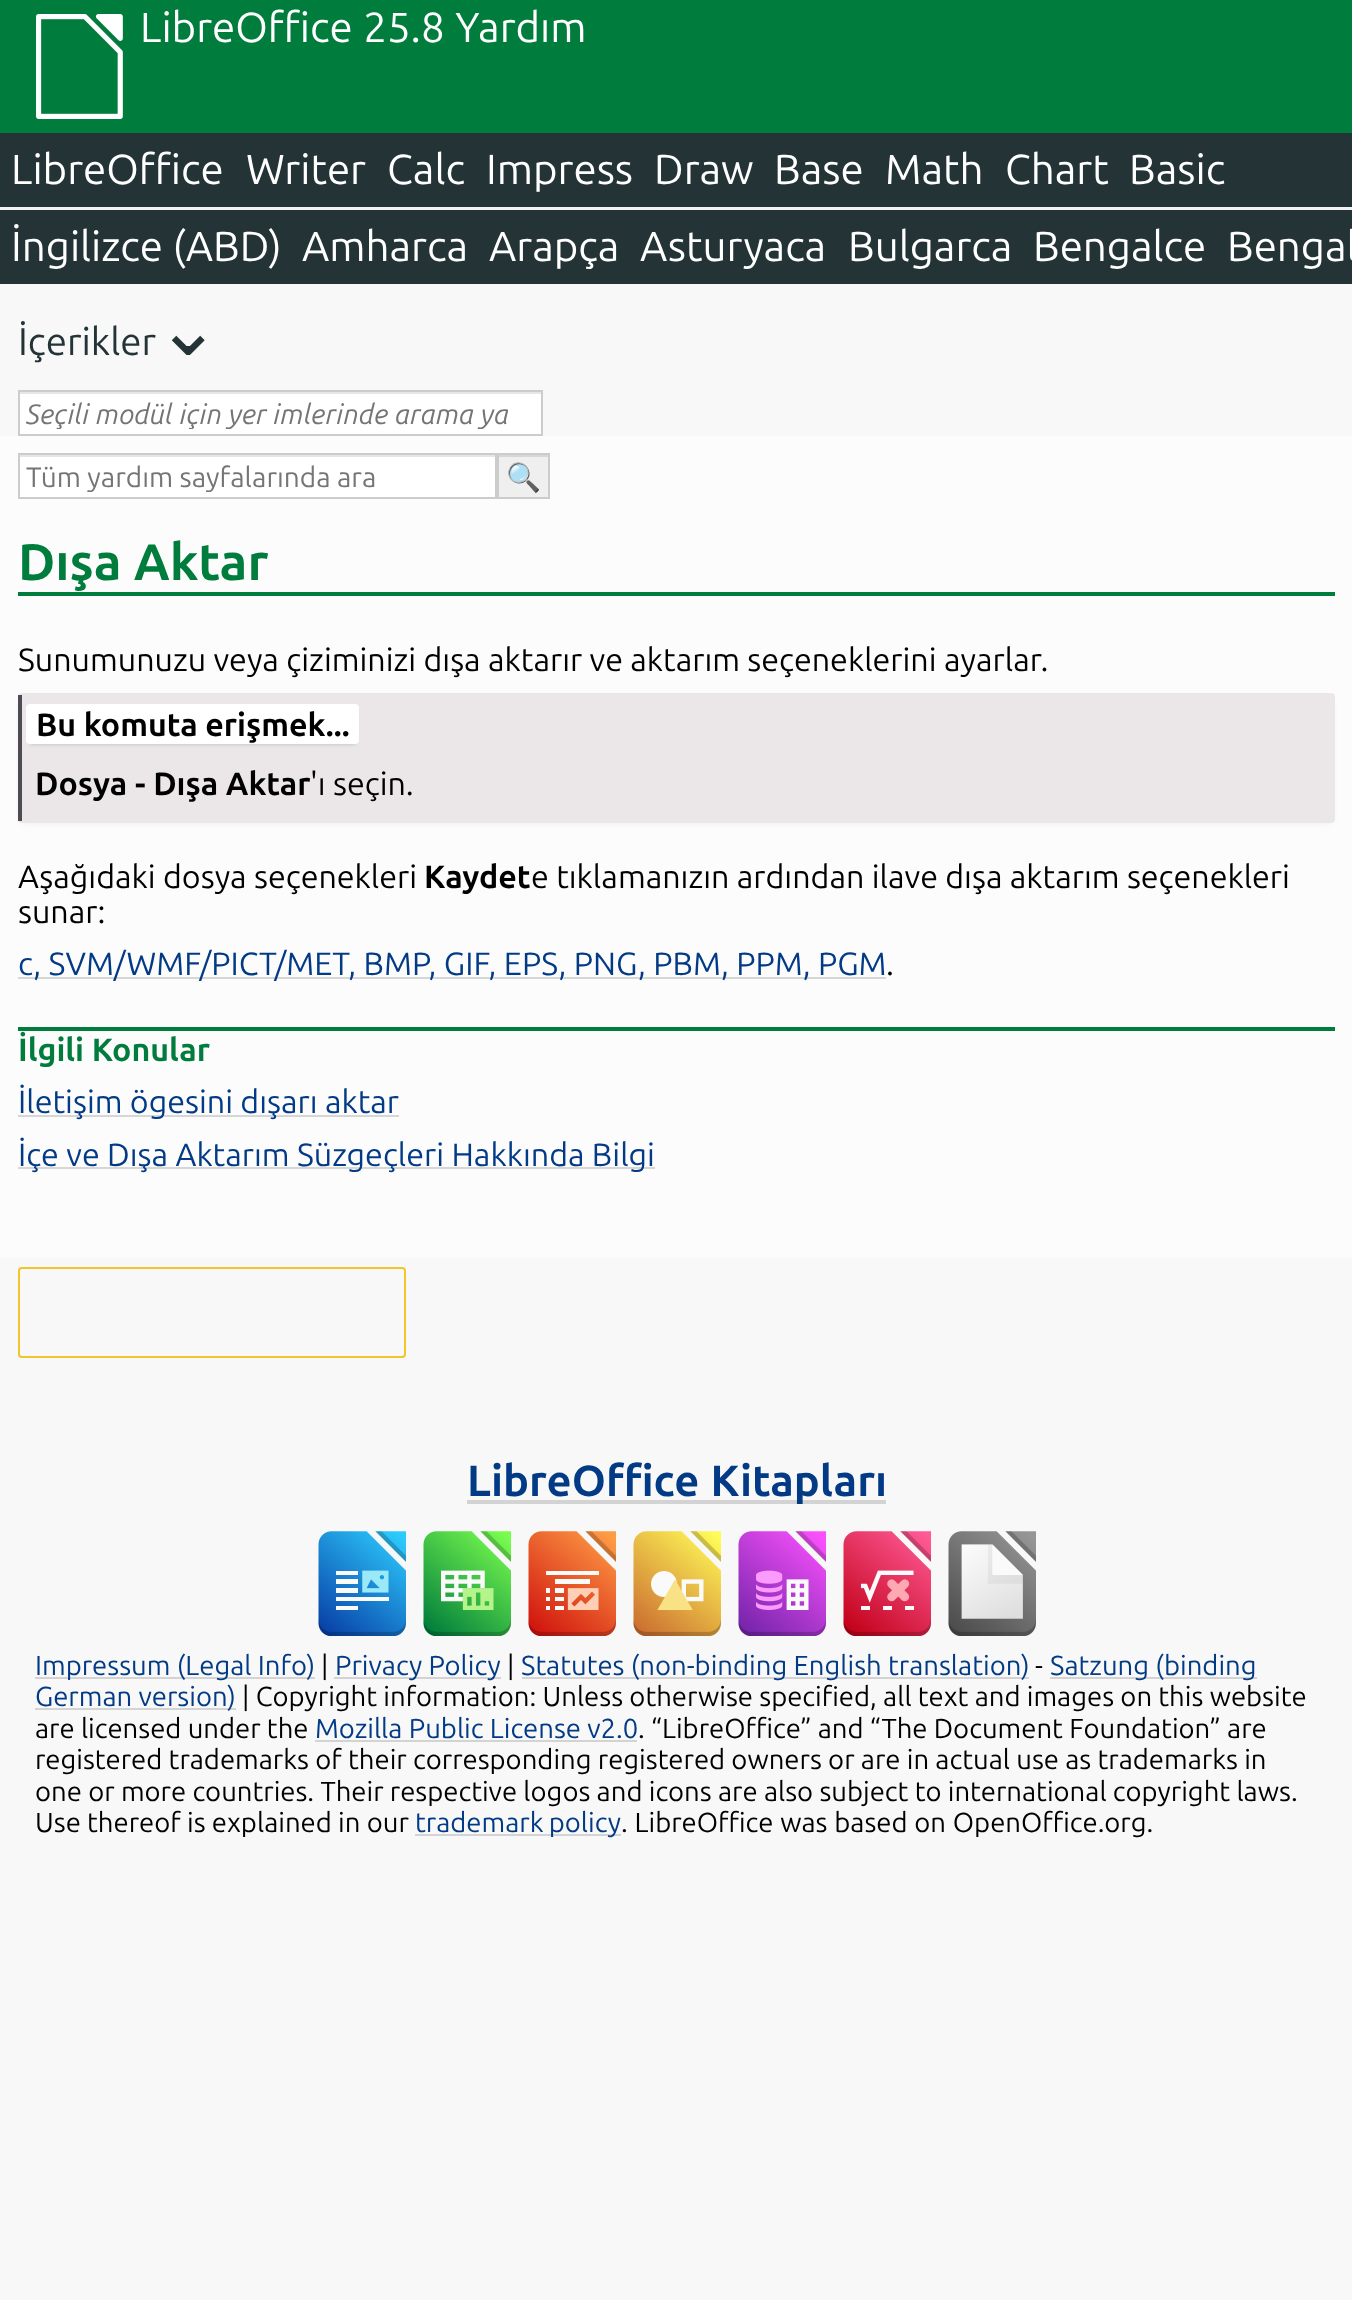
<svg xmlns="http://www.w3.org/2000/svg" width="1352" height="2300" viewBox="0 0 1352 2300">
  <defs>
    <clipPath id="clip1"><rect x="26" y="397" width="482" height="32"/></clipPath>
    <clipPath id="clip2"><rect x="26" y="460" width="436" height="32"/></clipPath>
  </defs>
  <rect width="100%" height="100%" fill="rgb(247,248,247)"/>
  <rect x="0" y="0" width="1352" height="133" fill="rgb(0,124,60)"/>
  <image x="36" y="14" width="87" height="105" href="pic1.png"/>
  <text x="140" y="42" word-spacing="1" font-family="Ubuntu" font-size="42" fill="rgb(255,255,255)">LibreOffice 25.8 Yardım</text>
  <rect x="0" y="133" width="1352" height="74" fill="rgb(35,51,54)"/>
  <rect x="0" y="207" width="1352" height="3" fill="rgb(243,243,243)"/>
  <g font-family="Ubuntu" font-size="42" fill="rgb(255,255,255)">
    <text x="11" y="184">LibreOffice</text>
    <text x="246" y="184">Writer</text>
    <text x="387" y="184">Calc</text>
    <text x="486" y="184">Impress</text>
    <text x="654" y="184">Draw</text>
    <text x="774" y="184">Base</text>
    <text x="885" y="184">Math</text>
    <text x="1005" y="184">Chart</text>
    <text x="1129" y="184">Basic</text>
  </g>
  <rect x="0" y="210" width="1352" height="74" fill="rgb(35,51,54)"/>
  <g font-family="Ubuntu" font-size="42" fill="rgb(255,255,255)">
    <text x="11" y="261">İngilizce (ABD)</text>
    <text x="302" y="261">Amharca</text>
    <text x="489" y="261">Arapça</text>
    <text x="640" y="261">Asturyaca</text>
    <text x="848" y="261">Bulgarca</text>
    <text x="1033" y="261">Bengalce</text>
    <text x="1227" y="261">Bengal</text>
  </g>
  <text x="18" y="355" font-family="Ubuntu" font-size="38.5" fill="rgb(35,51,54)">İçerikler</text>
  <text x="156" y="355" font-family="DejaVu Sans" font-size="77" fill="rgb(35,51,54)">⌄</text>
  <rect x="20" y="394" width="521" height="40" fill="rgb(255,255,255)"/>
  <rect x="19" y="392" width="522" height="2" fill="rgb(230,230,230)"/>
  <rect x="19" y="391" width="523" height="44" fill="none" stroke="rgb(204,204,204)" stroke-width="2"/>
  <g clip-path="url(#clip1)">
    <text x="26" y="424" font-family="Ubuntu" font-size="28" font-style="italic" fill="rgb(117,117,117)">Seçili modül için yer imlerinde arama ya</text>
  </g>
  <rect x="0" y="436" width="1352" height="822" fill="rgb(252,252,252)"/>
  <rect x="20" y="457" width="475" height="40" fill="rgb(255,255,255)"/>
  <rect x="19" y="455" width="476" height="2" fill="rgb(230,230,230)"/>
  <rect x="19" y="454" width="477" height="44" fill="none" stroke="rgb(204,204,204)" stroke-width="2"/>
  <g clip-path="url(#clip2)">
    <text x="26" y="487" font-family="Ubuntu" font-size="28" fill="rgb(117,117,117)">Tüm yardım sayfalarında ara</text>
  </g>
  <rect x="499" y="457" width="49" height="40" fill="rgb(239,239,239)"/>
  <rect x="499" y="455" width="49" height="2" fill="rgb(215,215,215)"/>
  <rect x="498" y="454" width="51" height="44" fill="none" stroke="rgb(204,204,204)" stroke-width="2"/>
  <text x="506" y="487" font-family="Noto Color Emoji" font-size="28" fill="rgb(0,0,0)">🔍</text>
  <rect x="18" y="592" width="1317" height="4" fill="rgb(0,124,60)"/>
  <text x="18" y="580" font-family="Ubuntu" font-size="51.25" font-weight="bold" fill="rgb(0,124,60)">Dışa Aktar</text>
  <text x="18" y="671" font-family="Ubuntu" font-size="32.2" fill="rgb(0,0,0)">Sunumunuzu veya çiziminizi dışa aktarır ve aktarım seçeneklerini ayarlar.</text>
  <rect x="23" y="702" width="1307" height="119" fill="rgba(0,0,0,0.1)" filter="blur(4.5px)"/>
  <rect x="18" y="693" width="1317" height="130" rx="4" fill="rgb(235,231,233)"/>
  <rect x="18" y="695" width="4" height="126" fill="rgb(78,75,85)"/>
  <rect x="30" y="711" width="325" height="33" fill="rgba(0,0,0,0.2)" filter="blur(2px)"/>
  <rect x="26" y="704" width="333" height="40" rx="4" fill="rgb(255,255,255)"/>
  <g font-family="Ubuntu" font-size="32.2" font-weight="bold" fill="rgb(0,0,0)">
    <text x="36" y="736">Bu komuta erişmek...</text>
    <text x="35" y="795">Dosya - Dışa Aktar</text>
  </g>
  <g font-family="Ubuntu" font-size="32.2" fill="rgb(0,0,0)">
    <text x="310" y="795">'ı seçin.</text>
    <text x="18" y="888">Aşağıdaki dosya seçenekleri</text>
  </g>
  <text x="424" y="888" font-family="Ubuntu" font-size="32.2" font-weight="bold" fill="rgb(0,0,0)">Kaydet</text>
  <g font-family="Ubuntu" font-size="32.2" fill="rgb(0,0,0)">
    <text x="531" y="888">e tıklamanızın ardından ilave dışa aktarım seçenekleri</text>
    <text x="18" y="923">sunar:</text>
  </g>
  <rect x="18" y="977" width="868" height="2" fill="rgb(214,214,214)"/>
  <text x="18" y="975" font-family="Ubuntu" font-size="32.2" fill="rgb(2,58,134)">c, SVM/WMF/PICT/MET, BMP, GIF, EPS, PNG, PBM, PPM, PGM</text>
  <text x="886" y="975" font-family="Ubuntu" font-size="32.2" fill="rgb(0,0,0)">.</text>
  <rect x="18" y="1027" width="1317" height="4" fill="rgb(0,124,60)"/>
  <text x="18" y="1061" font-family="Ubuntu" font-size="32.2" font-weight="bold" fill="rgb(0,124,60)">İlgili Konular</text>
  <rect x="18" y="1115" width="381" height="2" fill="rgb(214,214,214)"/>
  <text x="18" y="1113" font-family="Ubuntu" font-size="32.2" fill="rgb(2,58,134)">İletişim ögesini dışarı aktar</text>
  <rect x="18" y="1167" width="637" height="2" fill="rgb(214,214,214)"/>
  <text x="18" y="1166" font-family="Ubuntu" font-size="32.2" fill="rgb(2,58,134)">İçe ve Dışa Aktarım Süzgeçleri Hakkında Bilgi</text>
  <rect x="19" y="1268" width="386" height="89" rx="3" fill="none" stroke="rgb(241,198,42)" stroke-width="2"/>
  <rect x="467" y="1500" width="419" height="4" fill="rgb(210,211,210)"/>
  <text x="467" y="1496" word-spacing="1" font-family="Ubuntu" font-size="43.5" font-weight="bold" fill="rgb(2,58,134)">LibreOffice Kitapları</text>
  <image x="318" y="1531" width="88" height="105" href="pic2.png"/>
  <image x="423" y="1531" width="88" height="105" href="pic3.png"/>
  <image x="528" y="1531" width="88" height="105" href="pic4.png"/>
  <image x="633" y="1531" width="88" height="105" href="pic5.png"/>
  <image x="738" y="1531" width="88" height="105" href="pic6.png"/>
  <image x="843" y="1531" width="88" height="105" href="pic7.png"/>
  <image x="948" y="1531" width="88" height="105" href="pic8.png"/>
  <rect x="35" y="1677" width="280" height="2" fill="rgb(210,211,210)"/>
  <text x="35" y="1675" font-family="Ubuntu" font-size="27.45" fill="rgb(2,58,134)">Impressum (Legal Info)</text>
  <text x="321" y="1675" font-family="Ubuntu" font-size="27.45" fill="rgb(0,0,0)">|</text>
  <rect x="334" y="1677" width="167" height="2" fill="rgb(210,211,210)"/>
  <text x="335" y="1675" font-family="Ubuntu" font-size="27.45" fill="rgb(2,58,134)">Privacy Policy</text>
  <text x="507" y="1675" font-family="Ubuntu" font-size="27.45" fill="rgb(0,0,0)">|</text>
  <rect x="522" y="1677" width="507" height="2" fill="rgb(210,211,210)"/>
  <text x="521" y="1675" font-family="Ubuntu" font-size="27.45" fill="rgb(2,58,134)">Statutes (non-binding English translation)</text>
  <text x="1035" y="1675" font-family="Ubuntu" font-size="27.45" fill="rgb(0,0,0)">-</text>
  <rect x="1050" y="1677" width="207" height="2" fill="rgb(210,211,210)"/>
  <text x="1050" y="1675" font-family="Ubuntu" font-size="27.45" fill="rgb(2,58,134)">Satzung (binding</text>
  <rect x="35" y="1708" width="201" height="2" fill="rgb(210,211,210)"/>
  <text x="35" y="1706" font-family="Ubuntu" font-size="27.45" fill="rgb(2,58,134)">German version)</text>
  <g font-family="Ubuntu" font-size="27.45" fill="rgb(0,0,0)">
    <text x="242" y="1706">| Copyright information: Unless otherwise specified, all text and images on this website</text>
    <text x="35" y="1738">are licensed under the</text>
  </g>
  <text x="315" y="1738" font-family="Ubuntu" font-size="27.45" fill="rgb(2,58,134)">Mozilla Public License v2.0</text>
  <rect x="315" y="1740" width="322" height="2" fill="rgb(210,211,210)"/>
  <g font-family="Ubuntu" font-size="27.45" fill="rgb(0,0,0)">
    <text x="638" y="1738">. “LibreOffice” and “The Document Foundation” are</text>
    <text>
      <tspan x="35" y="1769">registered trademarks of their corresponding registered owners or are in actual use as trademarks in</tspan>
      <tspan x="35" y="1801">one or more countries. Their respective logos and icons are also subject to international copyright laws.</tspan>
      <tspan x="35" y="1832">Use thereof is explained in our</tspan>
    </text>
  </g>
  <rect x="415" y="1834" width="206" height="2" fill="rgb(210,211,210)"/>
  <text x="415" y="1832" word-spacing="-1" font-family="Ubuntu" font-size="27.45" fill="rgb(2,58,134)">trademark policy</text>
  <text x="621" y="1832" word-spacing="0.5" font-family="Ubuntu" font-size="27.45" fill="rgb(0,0,0)">. LibreOffice was based on OpenOffice.org.</text>
</svg>
